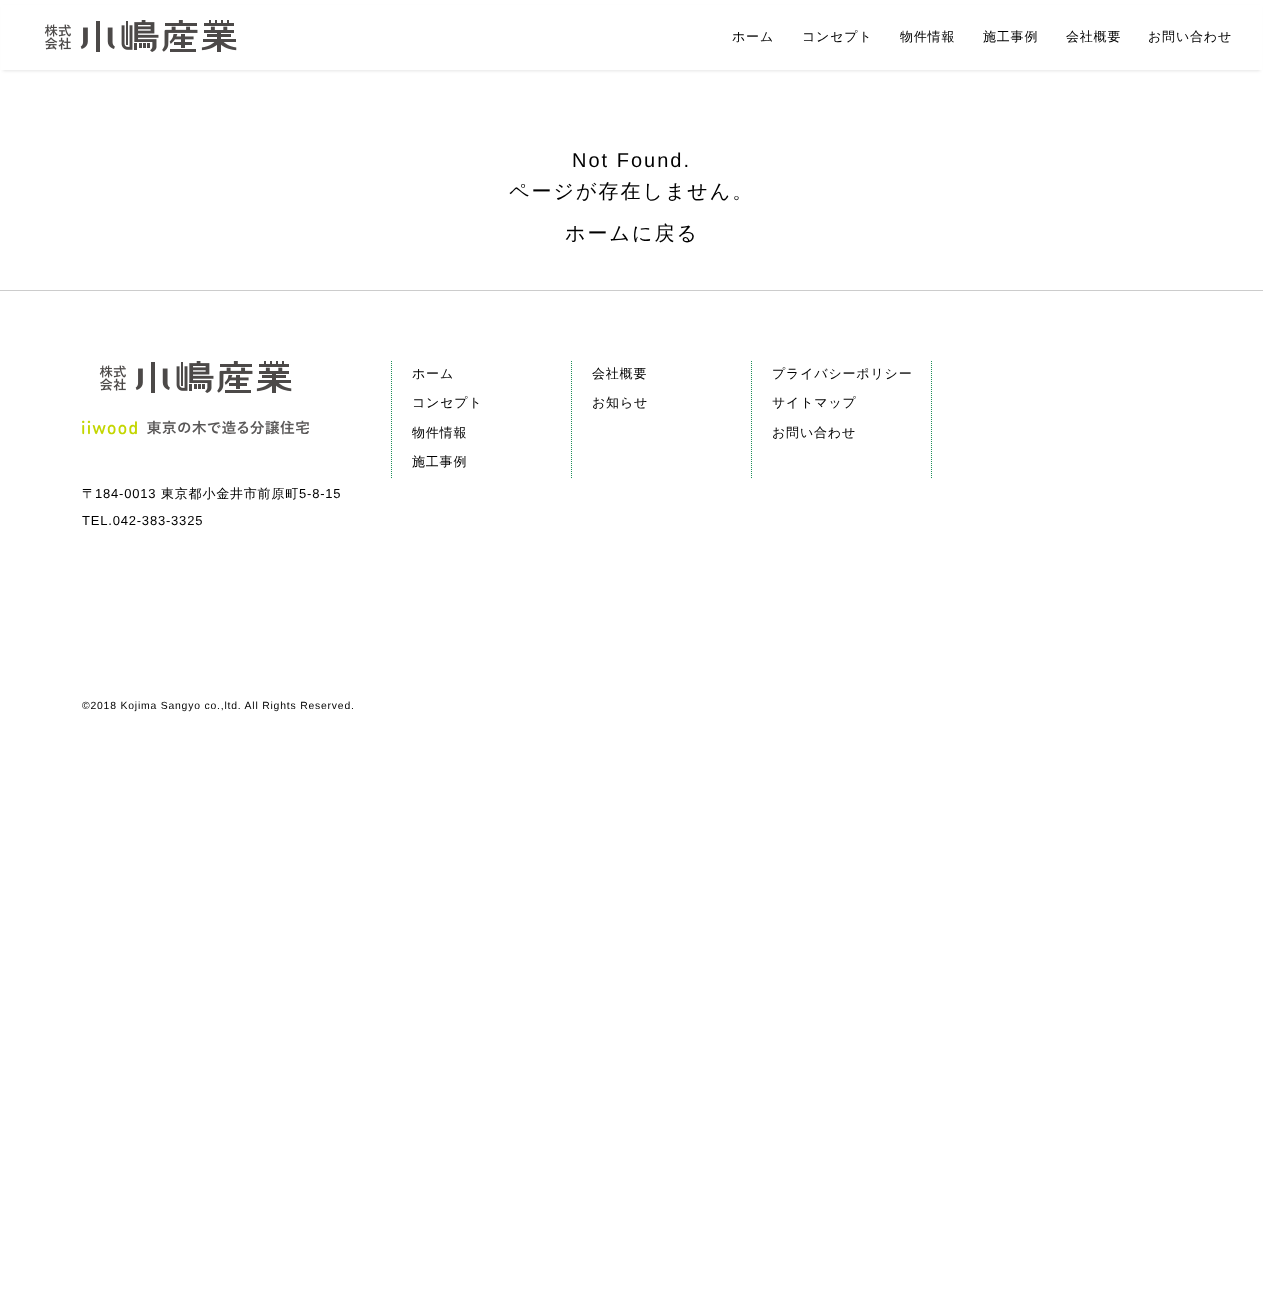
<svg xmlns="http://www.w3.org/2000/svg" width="1263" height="1289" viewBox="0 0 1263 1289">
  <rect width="100%" height="100%" fill="rgb(255,255,255)"/>
  <rect x="3" y="7" width="1257" height="64" fill="rgba(0,0,0,0.1)" filter="blur(1.5px)"/>
  <rect x="1" y="5" width="1261" height="65" fill="rgb(255,255,255)"/>
  <image x="44" y="20" width="193" height="32" href="pic1.png"/>
  <g font-family="WenQuanYi Zen Hei" font-size="13" font-weight="500" letter-spacing="0.8" fill="rgb(0,0,0)">
    <text x="732" y="41">ホーム</text>
    <text x="802" y="41">コンセプト</text>
    <text x="900" y="41">物件情報</text>
    <text x="983" y="41">施工事例</text>
    <text x="1066" y="41">会社概要</text>
    <text x="1148" y="41">お問い合わせ</text>
  </g>
  <text x="572" y="167" font-family="Liberation Sans" font-size="20" letter-spacing="2" fill="rgb(0,0,0)">Not Found.</text>
  <g font-family="WenQuanYi Zen Hei" font-size="20" font-weight="500" letter-spacing="2" fill="rgb(0,0,0)">
    <text x="509" y="198">ページが存在しません。</text>
    <text x="565" y="240">ホームに戻る</text>
  </g>
  <rect x="0" y="290" width="1263" height="1" fill="rgb(204,204,204)"/>
  <path d="M391.5 361V478" fill="none" stroke="rgb(29,143,89)" stroke-dasharray="1 1"/>
  <g font-family="WenQuanYi Zen Hei" font-size="13" font-weight="500" letter-spacing="0.8" fill="rgb(0,0,0)">
    <text x="412" y="378">ホーム</text>
    <text x="412" y="407">コンセプト</text>
    <text x="412" y="437">物件情報</text>
    <text x="412" y="466">施工事例</text>
  </g>
  <path d="M571.5 361V478" fill="none" stroke="rgb(29,143,89)" stroke-dasharray="1 1"/>
  <g font-family="WenQuanYi Zen Hei" font-size="13" font-weight="500" letter-spacing="0.8" fill="rgb(0,0,0)">
    <text x="592" y="378">会社概要</text>
    <text x="592" y="407">お知らせ</text>
  </g>
  <path d="M751.5 361V478" fill="none" stroke="rgb(29,143,89)" stroke-dasharray="1 1"/>
  <g font-family="WenQuanYi Zen Hei" font-size="13" font-weight="500" letter-spacing="0.8" fill="rgb(0,0,0)">
    <text x="772" y="378">プライバシーポリシー</text>
    <text x="772" y="407">サイトマップ</text>
    <text x="772" y="437">お問い合わせ</text>
  </g>
  <path d="M931.5 361V478" fill="none" stroke="rgb(29,143,89)" stroke-dasharray="1 1"/>
  <image x="99" y="361" width="193" height="32" href="pic1.png"/>
  <image x="82" y="420" width="227" height="15" href="pic2.png"/>
  <text x="82" y="498" font-family="WenQuanYi Zen Hei" font-size="13" font-weight="500" letter-spacing="0.8" fill="rgb(0,0,0)">〒</text>
  <text x="95" y="498" font-family="Liberation Sans" font-size="13" letter-spacing="0.8" fill="rgb(0,0,0)">184-0013</text>
  <text x="161" y="498" font-family="WenQuanYi Zen Hei" font-size="13" font-weight="500" letter-spacing="0.8" fill="rgb(0,0,0)">東京都小金井市前原町</text>
  <g font-family="Liberation Sans" font-size="13" letter-spacing="0.8" fill="rgb(0,0,0)">
    <text x="299" y="498">5-8-15</text>
    <text x="82" y="525">TEL.042-383-3325</text>
  </g>
  <text x="82" y="709" font-family="Liberation Sans" font-size="10.4" letter-spacing="0.8" fill="rgb(0,0,0)">©2018 Kojima Sangyo co.,ltd. All Rights Reserved.</text>
</svg>
